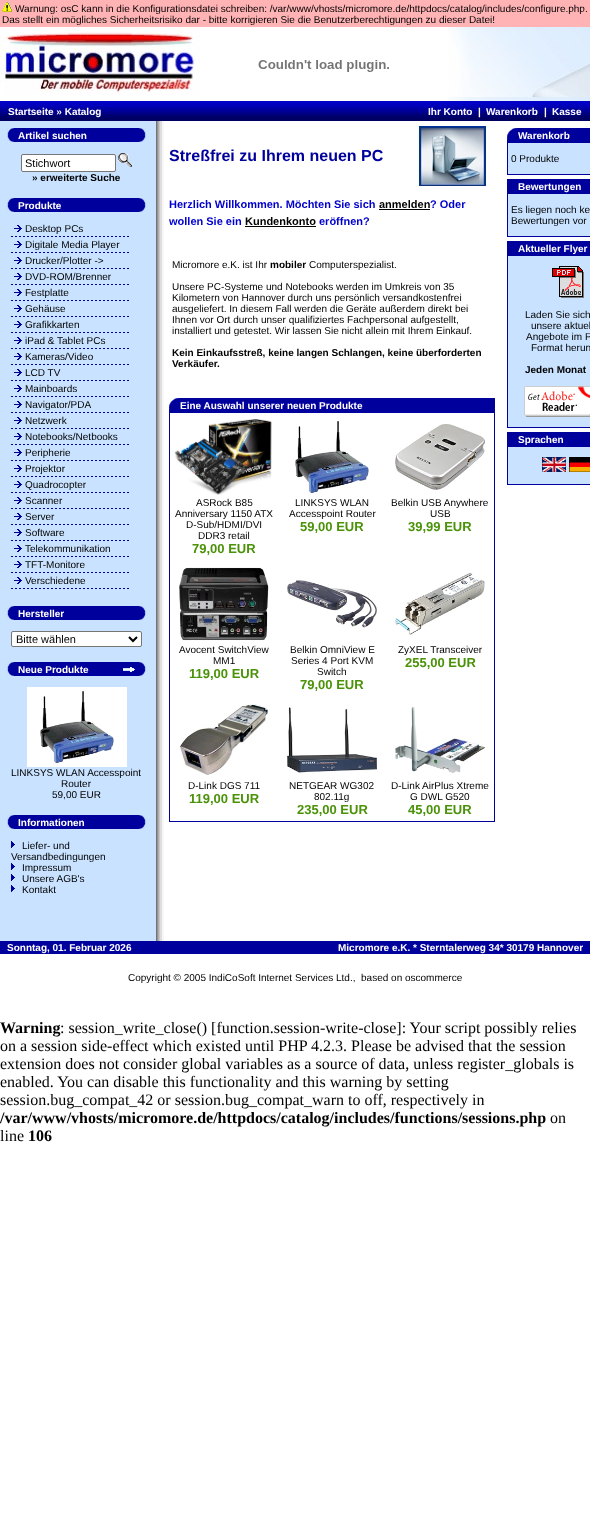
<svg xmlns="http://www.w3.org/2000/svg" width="590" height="1533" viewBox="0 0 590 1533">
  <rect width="100%" height="100%" fill="rgb(255,255,255)"/>
  <rect x="0" y="0" width="590" height="27" fill="rgb(255,179,181)"/>
  <image x="2" y="2" width="10" height="10" href="pic1.png"/>
  <g font-family="Liberation Sans" font-size="10" fill="rgb(0,0,0)">
    <text x="15" y="12">Warnung: osC kann in die Konfigurationsdatei schreiben: /var/www/vhosts/micromore.de/httpdocs/catalog/includes/configure.php.</text>
    <text x="2" y="23">Das stellt ein mögliches Sicherheitsrisiko dar - bitte korrigieren Sie die Benutzerberechtigungen zu dieser Datei!</text>
  </g>
  <image x="448" y="27" width="142" height="74" href="pic2.png"/>
  <image x="0" y="27" width="200" height="68" href="pic3.png"/>
  <image x="258" y="60" width="131" height="12" href="pic4.png"/>
  <image x="0" y="101" width="590" height="20" href="pic5.png"/>
  <g font-family="Liberation Sans" font-size="10" font-weight="bold" fill="rgb(255,255,255)">
    <text x="8" y="115">Startseite » Katalog</text>
    <text x="428" y="115">Ihr Konto</text>
    <text x="478" y="115">|</text>
    <text x="486" y="115">Warenkorb</text>
    <text x="544" y="115">|</text>
    <text x="552" y="115">Kasse</text>
  </g>
  <rect x="0" y="121" width="153" height="820" fill="rgb(200,226,255)"/>
  <image x="7" y="128" width="11" height="14" href="pic6.png"/>
  <rect x="18" y="128" width="117" height="14" fill="rgb(0,0,156)"/>
  <text x="18" y="139" font-family="Liberation Sans" font-size="10" font-weight="bold" fill="rgb(255,255,255)">Artikel suchen</text>
  <image x="135" y="128" width="11" height="14" href="pic7.png"/>
  <rect x="21.5" y="154.5" width="94" height="17" rx="1.5" fill="rgb(255,255,255)" stroke="rgb(118,118,118)"/>
  <text x="25" y="167" font-family="Liberation Sans" font-size="11" fill="rgb(0,0,0)">Stichwort</text>
  <image x="118" y="153" width="14" height="14" href="pic8.png"/>
  <text x="32" y="181" font-family="Liberation Sans" font-size="10" font-weight="bold" fill="rgb(0,0,0)">» erweiterte Suche</text>
  <image x="7" y="198" width="11" height="14" href="pic6.png"/>
  <rect x="18" y="198" width="117" height="14" fill="rgb(0,0,156)"/>
  <text x="18" y="209" font-family="Liberation Sans" font-size="10" font-weight="bold" fill="rgb(255,255,255)">Produkte</text>
  <image x="135" y="198" width="11" height="14" href="pic7.png"/>
  <image x="14" y="225" width="8" height="7" href="pic9.png"/>
  <text x="25" y="232" font-family="Liberation Sans" font-size="10" fill="rgb(0,0,0)">Desktop PCs</text>
  <image x="11" y="236" width="118" height="1" href="pic10.png"/>
  <image x="14" y="241" width="8" height="7" href="pic9.png"/>
  <text x="25" y="248" font-family="Liberation Sans" font-size="10" fill="rgb(0,0,0)">Digitale Media Player</text>
  <image x="11" y="252" width="118" height="1" href="pic10.png"/>
  <image x="14" y="257" width="8" height="7" href="pic9.png"/>
  <text x="25" y="264" font-family="Liberation Sans" font-size="10" fill="rgb(0,0,0)">Drucker/Plotter -&gt;</text>
  <image x="11" y="268" width="118" height="1" href="pic10.png"/>
  <image x="14" y="273" width="8" height="7" href="pic9.png"/>
  <text x="25" y="280" font-family="Liberation Sans" font-size="10" fill="rgb(0,0,0)">DVD-ROM/Brenner</text>
  <image x="11" y="284" width="118" height="1" href="pic10.png"/>
  <image x="14" y="289" width="8" height="7" href="pic9.png"/>
  <text x="25" y="296" font-family="Liberation Sans" font-size="10" fill="rgb(0,0,0)">Festplatte</text>
  <image x="11" y="300" width="118" height="1" href="pic10.png"/>
  <image x="14" y="305" width="8" height="7" href="pic9.png"/>
  <text x="25" y="312" font-family="Liberation Sans" font-size="10" fill="rgb(0,0,0)">Gehäuse</text>
  <image x="11" y="316" width="118" height="1" href="pic10.png"/>
  <image x="14" y="321" width="8" height="7" href="pic9.png"/>
  <text x="25" y="328" font-family="Liberation Sans" font-size="10" fill="rgb(0,0,0)">Grafikkarten</text>
  <image x="11" y="332" width="118" height="1" href="pic10.png"/>
  <image x="14" y="337" width="8" height="7" href="pic9.png"/>
  <text x="25" y="344" font-family="Liberation Sans" font-size="10" fill="rgb(0,0,0)">iPad &amp; Tablet PCs</text>
  <image x="11" y="348" width="118" height="1" href="pic10.png"/>
  <image x="14" y="353" width="8" height="7" href="pic9.png"/>
  <text x="25" y="360" font-family="Liberation Sans" font-size="10" fill="rgb(0,0,0)">Kameras/Video</text>
  <image x="11" y="364" width="118" height="1" href="pic10.png"/>
  <image x="14" y="369" width="8" height="7" href="pic9.png"/>
  <text x="25" y="376" font-family="Liberation Sans" font-size="10" fill="rgb(0,0,0)">LCD TV</text>
  <image x="11" y="380" width="118" height="1" href="pic10.png"/>
  <image x="14" y="385" width="8" height="7" href="pic9.png"/>
  <text x="25" y="392" font-family="Liberation Sans" font-size="10" fill="rgb(0,0,0)">Mainboards</text>
  <image x="11" y="396" width="118" height="1" href="pic10.png"/>
  <image x="14" y="401" width="8" height="7" href="pic9.png"/>
  <text x="25" y="408" font-family="Liberation Sans" font-size="10" fill="rgb(0,0,0)">Navigator/PDA</text>
  <image x="11" y="412" width="118" height="1" href="pic10.png"/>
  <image x="14" y="417" width="8" height="7" href="pic9.png"/>
  <text x="25" y="424" font-family="Liberation Sans" font-size="10" fill="rgb(0,0,0)">Netzwerk</text>
  <image x="11" y="428" width="118" height="1" href="pic10.png"/>
  <image x="14" y="433" width="8" height="7" href="pic9.png"/>
  <text x="25" y="440" font-family="Liberation Sans" font-size="10" fill="rgb(0,0,0)">Notebooks/Netbooks</text>
  <image x="11" y="444" width="118" height="1" href="pic10.png"/>
  <image x="14" y="449" width="8" height="7" href="pic9.png"/>
  <text x="25" y="456" font-family="Liberation Sans" font-size="10" fill="rgb(0,0,0)">Peripherie</text>
  <image x="11" y="460" width="118" height="1" href="pic10.png"/>
  <image x="14" y="465" width="8" height="7" href="pic9.png"/>
  <text x="25" y="472" font-family="Liberation Sans" font-size="10" fill="rgb(0,0,0)">Projektor</text>
  <image x="11" y="476" width="118" height="1" href="pic10.png"/>
  <image x="14" y="481" width="8" height="7" href="pic9.png"/>
  <text x="25" y="488" font-family="Liberation Sans" font-size="10" fill="rgb(0,0,0)">Quadrocopter</text>
  <image x="11" y="492" width="118" height="1" href="pic10.png"/>
  <image x="14" y="497" width="8" height="7" href="pic9.png"/>
  <text x="25" y="504" font-family="Liberation Sans" font-size="10" fill="rgb(0,0,0)">Scanner</text>
  <image x="11" y="508" width="118" height="1" href="pic10.png"/>
  <image x="14" y="513" width="8" height="7" href="pic9.png"/>
  <text x="25" y="520" font-family="Liberation Sans" font-size="10" fill="rgb(0,0,0)">Server</text>
  <image x="11" y="524" width="118" height="1" href="pic10.png"/>
  <image x="14" y="529" width="8" height="7" href="pic9.png"/>
  <text x="25" y="536" font-family="Liberation Sans" font-size="10" fill="rgb(0,0,0)">Software</text>
  <image x="11" y="540" width="118" height="1" href="pic10.png"/>
  <image x="14" y="545" width="8" height="7" href="pic9.png"/>
  <text x="25" y="552" font-family="Liberation Sans" font-size="10" fill="rgb(0,0,0)">Telekommunikation</text>
  <image x="11" y="556" width="118" height="1" href="pic10.png"/>
  <image x="14" y="561" width="8" height="7" href="pic9.png"/>
  <text x="25" y="568" font-family="Liberation Sans" font-size="10" fill="rgb(0,0,0)">TFT-Monitore</text>
  <image x="11" y="572" width="118" height="1" href="pic10.png"/>
  <image x="14" y="577" width="8" height="7" href="pic9.png"/>
  <text x="25" y="584" font-family="Liberation Sans" font-size="10" fill="rgb(0,0,0)">Verschiedene</text>
  <image x="11" y="588" width="118" height="1" href="pic10.png"/>
  <image x="7" y="606" width="11" height="14" href="pic6.png"/>
  <rect x="18" y="606" width="117" height="14" fill="rgb(0,0,156)"/>
  <text x="18" y="617" font-family="Liberation Sans" font-size="10" font-weight="bold" fill="rgb(255,255,255)">Hersteller</text>
  <image x="135" y="606" width="11" height="14" href="pic7.png"/>
  <rect x="11.5" y="631.5" width="130" height="15" rx="1.5" fill="rgb(255,255,255)" stroke="rgb(118,118,118)"/>
  <path d="M129 637L133 641L137 637" fill="none" stroke="rgb(0,0,0)" stroke-width="2"/>
  <text x="16" y="643" font-family="Liberation Sans" font-size="11" fill="rgb(0,0,0)">Bitte wählen</text>
  <image x="7" y="662" width="11" height="14" href="pic6.png"/>
  <rect x="18" y="662" width="117" height="14" fill="rgb(0,0,156)"/>
  <text x="18" y="673" font-family="Liberation Sans" font-size="10" font-weight="bold" fill="rgb(255,255,255)">Neue Produkte</text>
  <image x="123" y="667" width="12" height="5" href="pic11.png"/>
  <image x="135" y="662" width="11" height="14" href="pic7.png"/>
  <image x="27" y="687" width="100" height="80" href="pic12.png"/>
  <g font-family="Liberation Sans" font-size="10" fill="rgb(0,0,0)">
    <text x="11" y="776">LINKSYS WLAN Accesspoint</text>
    <text x="61" y="787">Router</text>
    <text x="52" y="798">59,00 EUR</text>
  </g>
  <image x="7" y="815" width="11" height="14" href="pic6.png"/>
  <rect x="18" y="815" width="117" height="14" fill="rgb(0,0,156)"/>
  <text x="18" y="826" font-family="Liberation Sans" font-size="10" font-weight="bold" fill="rgb(255,255,255)">Informationen</text>
  <image x="135" y="815" width="11" height="14" href="pic7.png"/>
  <image x="11" y="841" width="4" height="7" href="pic13.png"/>
  <g font-family="Liberation Sans" font-size="10" fill="rgb(0,0,0)">
    <text x="22" y="849">Liefer- und</text>
    <text x="11" y="860">Versandbedingungen</text>
  </g>
  <image x="11" y="863" width="4" height="7" href="pic13.png"/>
  <text x="22" y="871" font-family="Liberation Sans" font-size="10" fill="rgb(0,0,0)">Impressum</text>
  <image x="11" y="874" width="4" height="7" href="pic13.png"/>
  <text x="22" y="882" font-family="Liberation Sans" font-size="10" fill="rgb(0,0,0)">Unsere AGB's</text>
  <image x="11" y="885" width="4" height="7" href="pic13.png"/>
  <text x="22" y="893" font-family="Liberation Sans" font-size="10" fill="rgb(0,0,0)">Kontakt</text>
  <image x="153" y="121" width="11" height="820" href="pic14.png"/>
  <text x="169" y="161" font-family="Liberation Sans" font-size="16" font-weight="bold" fill="rgb(0,0,156)">Streßfrei zu Ihrem neuen PC</text>
  <image x="417" y="126" width="70" height="60" href="pic15.png"/>
  <text x="169" y="208" font-family="Liberation Sans" font-size="11" font-weight="bold" fill="rgb(0,0,206)">Herzlich Willkommen. Möchten Sie sich</text>
  <text x="379" y="208" font-family="Liberation Sans" font-size="11" font-weight="bold" fill="rgb(0,0,0)">anmelden</text>
  <rect x="379" y="209" width="51" height="1" fill="rgb(0,0,0)"/>
  <g font-family="Liberation Sans" font-size="11" font-weight="bold" fill="rgb(0,0,206)">
    <text x="430" y="208">? Oder</text>
    <text x="169" y="225">wollen Sie ein</text>
  </g>
  <text x="245" y="225" font-family="Liberation Sans" font-size="11" font-weight="bold" fill="rgb(0,0,0)">Kundenkonto</text>
  <rect x="245" y="226" width="71" height="1" fill="rgb(0,0,0)"/>
  <text x="319" y="225" font-family="Liberation Sans" font-size="11" font-weight="bold" fill="rgb(0,0,206)">eröffnen?</text>
  <text x="172" y="268" font-family="Liberation Sans" font-size="10" fill="rgb(0,0,0)">Micromore e.K. ist Ihr</text>
  <text x="270" y="268" font-family="Liberation Sans" font-size="10" font-weight="bold" fill="rgb(0,0,0)">mobiler</text>
  <g font-family="Liberation Sans" font-size="10" fill="rgb(0,0,0)">
    <text x="309" y="268">Computerspezialist.</text>
    <text>
      <tspan x="172" y="290">Unsere PC-Systeme und Notebooks werden im Umkreis von 35</tspan>
      <tspan x="172" y="301">Kilometern von Hannover durch uns persönlich versandkostenfrei</tspan>
      <tspan x="172" y="312">ausgeliefert. In diesem Fall werden die Geräte außerdem direkt bei</tspan>
      <tspan x="172" y="323">Ihnen vor Ort durch unser qualifiziertes Fachpersonal aufgestellt,</tspan>
      <tspan x="172" y="334">installiert und getestet. Wir lassen Sie nicht allein mit Ihrem Einkauf.</tspan>
    </text>
  </g>
  <g font-family="Liberation Sans" font-size="10" font-weight="bold" fill="rgb(0,0,0)">
    <text>
      <tspan x="172" y="356">Kein Einkaufsstreß, keine langen Schlangen, keine überforderten</tspan>
      <tspan x="172" y="367">Verkäufer.</tspan>
    </text>
  </g>
  <rect x="169" y="410" width="11" height="2" fill="rgb(0,0,156)"/>
  <image x="169" y="398" width="11" height="12" href="pic16.png"/>
  <rect x="180" y="398" width="304" height="14" fill="rgb(0,0,156)"/>
  <text x="180" y="409" font-family="Liberation Sans" font-size="10" font-weight="bold" fill="rgb(255,255,255)">Eine Auswahl unserer neuen Produkte</text>
  <image x="484" y="398" width="11" height="14" href="pic17.png"/>
  <rect x="169" y="412" width="326" height="410" fill="rgb(0,0,156)"/>
  <rect x="170" y="413" width="324" height="408" fill="rgb(255,255,255)"/>
  <image x="174" y="419" width="98" height="76" href="pic18.png"/>
  <g font-family="Liberation Sans" font-size="10" fill="rgb(0,0,0)">
    <text x="196" y="506">ASRock B85</text>
    <text x="175" y="517">Anniversary 1150 ATX</text>
    <text x="186" y="528">D-Sub/HDMI/DVI</text>
    <text x="198" y="539">DDR3 retail</text>
  </g>
  <text x="192" y="553" font-family="Liberation Sans" font-size="13" font-weight="bold" fill="rgb(74,146,8)">79,00 EUR</text>
  <image x="295" y="421" width="74" height="73" href="pic19.png"/>
  <g font-family="Liberation Sans" font-size="10" fill="rgb(0,0,0)">
    <text x="295" y="506">LINKSYS WLAN</text>
    <text x="289" y="517">Accesspoint Router</text>
  </g>
  <text x="300" y="531" font-family="Liberation Sans" font-size="13" font-weight="bold" fill="rgb(74,146,8)">59,00 EUR</text>
  <image x="395" y="424" width="90" height="66" href="pic20.png"/>
  <g font-family="Liberation Sans" font-size="10" fill="rgb(0,0,0)">
    <text x="391" y="506">Belkin USB Anywhere</text>
    <text x="430" y="517">USB</text>
  </g>
  <text x="408" y="531" font-family="Liberation Sans" font-size="13" font-weight="bold" fill="rgb(74,146,8)">39,99 EUR</text>
  <image x="179" y="567" width="90" height="74" href="pic21.png"/>
  <g font-family="Liberation Sans" font-size="10" fill="rgb(0,0,0)">
    <text x="179" y="653">Avocent SwitchView</text>
    <text x="213" y="664">MM1</text>
  </g>
  <text x="189" y="678" font-family="Liberation Sans" font-size="13" font-weight="bold" fill="rgb(74,146,8)">119,00 EUR</text>
  <image x="287" y="580" width="90" height="48" href="pic22.png"/>
  <g font-family="Liberation Sans" font-size="10" fill="rgb(0,0,0)">
    <text x="290" y="653">Belkin OmniView E</text>
    <text x="291" y="664">Series 4 Port KVM</text>
    <text x="317" y="675">Switch</text>
  </g>
  <text x="300" y="689" font-family="Liberation Sans" font-size="13" font-weight="bold" fill="rgb(74,146,8)">79,00 EUR</text>
  <image x="395" y="572" width="90" height="63" href="pic23.png"/>
  <text x="398" y="653" font-family="Liberation Sans" font-size="10" fill="rgb(0,0,0)">ZyXEL Transceiver</text>
  <text x="405" y="667" font-family="Liberation Sans" font-size="13" font-weight="bold" fill="rgb(74,146,8)">255,00 EUR</text>
  <image x="180" y="704" width="89" height="71" href="pic24.png"/>
  <text x="188" y="789" font-family="Liberation Sans" font-size="10" fill="rgb(0,0,0)">D-Link DGS 711</text>
  <text x="189" y="803" font-family="Liberation Sans" font-size="13" font-weight="bold" fill="rgb(74,146,8)">119,00 EUR</text>
  <image x="287" y="707" width="90" height="66" href="pic25.png"/>
  <g font-family="Liberation Sans" font-size="10" fill="rgb(0,0,0)">
    <text x="289" y="789">NETGEAR WG302</text>
    <text x="314" y="800">802.11g</text>
  </g>
  <text x="297" y="814" font-family="Liberation Sans" font-size="13" font-weight="bold" fill="rgb(74,146,8)">235,00 EUR</text>
  <image x="395" y="707" width="90" height="66" href="pic26.png"/>
  <g font-family="Liberation Sans" font-size="10" fill="rgb(0,0,0)">
    <text x="391" y="789">D-Link AirPlus Xtreme</text>
    <text x="410" y="800">G DWL G520</text>
  </g>
  <text x="408" y="814" font-family="Liberation Sans" font-size="13" font-weight="bold" fill="rgb(74,146,8)">45,00 EUR</text>
  <rect x="507" y="140" width="11" height="2" fill="rgb(0,0,156)"/>
  <image x="507" y="128" width="11" height="12" href="pic16.png"/>
  <rect x="518" y="128" width="72" height="14" fill="rgb(0,0,156)"/>
  <text x="518" y="139" font-family="Liberation Sans" font-size="10" font-weight="bold" fill="rgb(255,255,255)">Warenkorb</text>
  <rect x="507" y="142" width="83" height="33" fill="rgb(0,0,156)"/>
  <rect x="508" y="143" width="82" height="31" fill="rgb(200,226,255)"/>
  <text x="511" y="162" font-family="Liberation Sans" font-size="10" fill="rgb(0,0,0)">0 Produkte</text>
  <image x="507" y="179" width="11" height="14" href="pic17.png"/>
  <rect x="518" y="179" width="72" height="14" fill="rgb(0,0,156)"/>
  <text x="518" y="190" font-family="Liberation Sans" font-size="10" font-weight="bold" fill="rgb(255,255,255)">Bewertungen</text>
  <rect x="507" y="193" width="83" height="44" fill="rgb(0,0,156)"/>
  <rect x="508" y="194" width="82" height="42" fill="rgb(200,226,255)"/>
  <g font-family="Liberation Sans" font-size="10" fill="rgb(0,0,0)">
    <text>
      <tspan x="511" y="213">Es liegen noch ke</tspan>
      <tspan x="511" y="224">Bewertungen vor</tspan>
    </text>
  </g>
  <image x="507" y="241" width="11" height="14" href="pic17.png"/>
  <rect x="518" y="241" width="72" height="14" fill="rgb(0,0,156)"/>
  <text x="518" y="252" font-family="Liberation Sans" font-size="10" font-weight="bold" fill="rgb(255,255,255)">Aktueller Flyer</text>
  <rect x="507" y="255" width="83" height="173" fill="rgb(0,0,156)"/>
  <rect x="508" y="256" width="82" height="171" fill="rgb(200,226,255)"/>
  <image x="552" y="266" width="32" height="32" href="pic27.png"/>
  <g font-family="Liberation Sans" font-size="10" fill="rgb(0,0,0)">
    <text x="525" y="318">Laden Sie sich</text>
    <text x="531" y="329">unsere aktuel</text>
    <text x="526" y="340">Angebote im P</text>
    <text x="531" y="351">Format herun</text>
  </g>
  <text x="525" y="373" font-family="Liberation Sans" font-size="10" font-weight="bold" fill="rgb(0,0,0)">Jeden Monat</text>
  <image x="524" y="386" width="66" height="31" href="pic28.png"/>
  <image x="507" y="432" width="11" height="14" href="pic17.png"/>
  <rect x="518" y="432" width="72" height="14" fill="rgb(0,0,156)"/>
  <text x="518" y="443" font-family="Liberation Sans" font-size="10" font-weight="bold" fill="rgb(255,255,255)">Sprachen</text>
  <rect x="507" y="446" width="83" height="39" fill="rgb(0,0,156)"/>
  <rect x="508" y="447" width="82" height="37" fill="rgb(200,226,255)"/>
  <image x="542" y="457" width="24" height="15" href="pic29.png"/>
  <image x="569" y="457" width="21" height="15" href="pic30.png"/>
  <rect x="0" y="941" width="590" height="13" fill="rgb(0,0,156)"/>
  <g font-family="Liberation Sans" font-size="10" font-weight="bold" fill="rgb(255,255,255)">
    <text x="7" y="951">Sonntag, 01. Februar 2026</text>
    <text x="338" y="951">Micromore e.K. * Sterntalerweg 34* 30179 Hannover</text>
  </g>
  <text x="128" y="981" font-family="Liberation Sans" font-size="10" fill="rgb(0,0,0)" xml:space="preserve">Copyright © 2005 IndiCoSoft Internet Services Ltd.,  based on oscommerce</text>
  <text x="0" y="1033" font-family="Liberation Serif" font-size="16" font-weight="bold" fill="rgb(0,0,0)">Warning</text>
  <g font-family="Liberation Serif" font-size="16" fill="rgb(0,0,0)">
    <text x="60" y="1033">: session_write_close() [function.session-write-close]: Your script possibly relies</text>
    <text>
      <tspan x="0" y="1051">on a session side-effect which existed until PHP 4.2.3. Please be advised that the session</tspan>
      <tspan x="0" y="1069">extension does not consider global variables as a source of data, unless register_globals is</tspan>
      <tspan x="0" y="1087">enabled. You can disable this functionality and this warning by setting</tspan>
      <tspan x="0" y="1105">session.bug_compat_42 or session.bug_compat_warn to off, respectively in</tspan>
    </text>
  </g>
  <text x="0" y="1123" font-family="Liberation Serif" font-size="16" font-weight="bold" fill="rgb(0,0,0)">/var/www/vhosts/micromore.de/httpdocs/catalog/includes/functions/sessions.php</text>
  <g font-family="Liberation Serif" font-size="16" fill="rgb(0,0,0)">
    <text x="550" y="1123">on</text>
    <text x="0" y="1141">line</text>
  </g>
  <text x="28" y="1141" font-family="Liberation Serif" font-size="16" font-weight="bold" fill="rgb(0,0,0)">106</text>
</svg>
